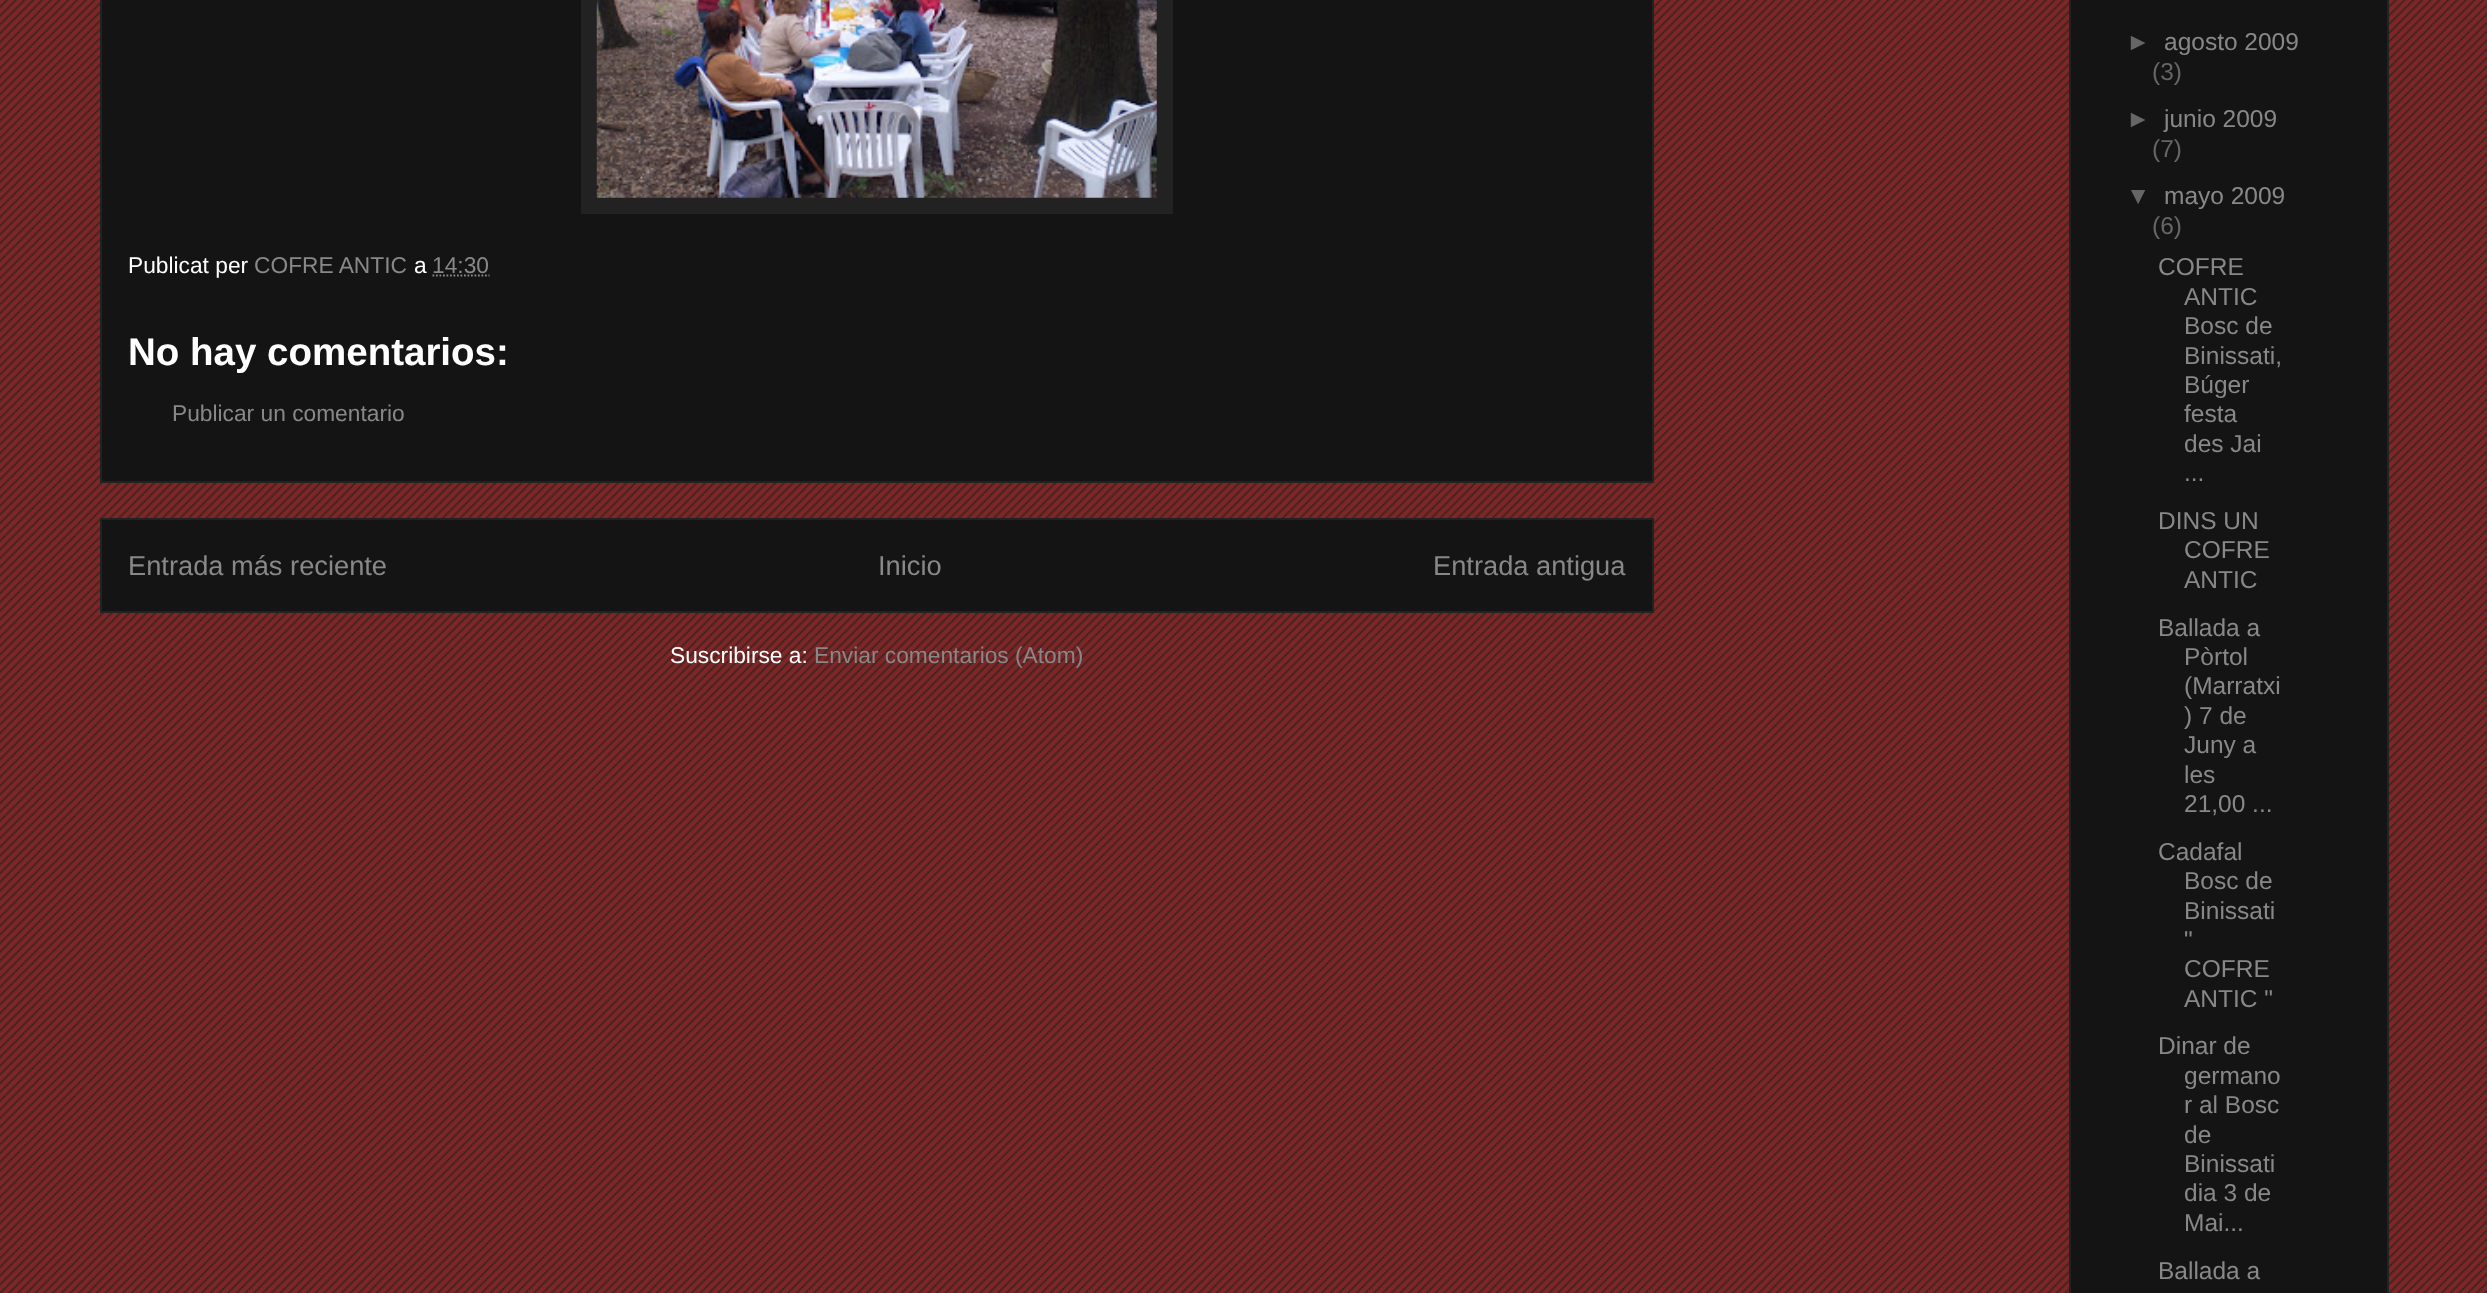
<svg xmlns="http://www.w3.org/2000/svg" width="2487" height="1293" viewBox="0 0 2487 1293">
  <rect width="100%" height="100%" fill="rgb(127,38,38)"/>
  <image x="0" y="0" width="2487" height="1293" href="pic1.png"/>
  <rect x="101" y="-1" width="1552" height="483" fill="rgb(20,20,20)" stroke="rgb(34,34,34)" stroke-width="2"/>
  <rect x="581" y="0" width="592" height="214" fill="rgb(34,34,34)"/>
  <image x="596" y="0" width="561" height="198" href="pic2.png"/>
  <text x="128" y="273" font-family="Liberation Sans" font-size="22.75" fill="rgb(255,255,255)">Publicat per</text>
  <text x="254" y="273" font-family="Liberation Sans" font-size="22.75" fill="rgb(136,136,136)">COFRE ANTIC</text>
  <text x="414" y="273" font-family="Liberation Sans" font-size="22.75" fill="rgb(255,255,255)">a</text>
  <text x="432" y="273" font-family="Liberation Sans" font-size="22.75" fill="rgb(136,136,136)">14:30</text>
  <path d="M432.5 275.5H489.5" fill="none" stroke="rgb(136,136,136)" stroke-width="1.8" stroke-dasharray="1.75 1.75"/>
  <text x="128" y="365" font-family="Liberation Sans" font-size="38.5" font-weight="bold" fill="rgb(255,255,255)">No hay comentarios:</text>
  <text x="172" y="421" font-family="Liberation Sans" font-size="22.75" fill="rgb(136,136,136)">Publicar un comentario</text>
  <rect x="101" y="519" width="1552" height="93" fill="rgb(20,20,20)" stroke="rgb(34,34,34)" stroke-width="2"/>
  <g font-family="Liberation Sans" font-size="27.25" fill="rgb(136,136,136)">
    <text x="128" y="575">Entrada más reciente</text>
    <text x="878" y="575">Inicio</text>
    <text x="1433" y="575">Entrada antigua</text>
  </g>
  <text x="670" y="663" font-family="Liberation Sans" font-size="22.75" fill="rgb(255,255,255)">Suscribirse a:</text>
  <text x="814" y="663" font-family="Liberation Sans" font-size="22.75" fill="rgb(136,136,136)">Enviar comentarios (Atom)</text>
  <rect x="2070" y="-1" width="318" height="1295" fill="rgb(20,20,20)" stroke="rgb(34,34,34)" stroke-width="2"/>
  <text x="2126" y="50" font-family="Liberation Sans" font-size="24.5" fill="rgb(102,102,102)">►</text>
  <text x="2164" y="50" font-family="Liberation Sans" font-size="24.5" fill="rgb(136,136,136)">agosto 2009</text>
  <g font-family="Liberation Sans" font-size="24.5" fill="rgb(102,102,102)">
    <text x="2152" y="80">(3)</text>
    <text x="2126" y="127">►</text>
  </g>
  <text x="2164" y="127" font-family="Liberation Sans" font-size="24.5" fill="rgb(136,136,136)">junio 2009</text>
  <g font-family="Liberation Sans" font-size="24.5" fill="rgb(102,102,102)">
    <text x="2152" y="157">(7)</text>
    <text x="2126" y="204">▼</text>
  </g>
  <text x="2164" y="204" font-family="Liberation Sans" font-size="24.5" fill="rgb(136,136,136)">mayo 2009</text>
  <text x="2152" y="234" font-family="Liberation Sans" font-size="24.5" fill="rgb(102,102,102)">(6)</text>
  <g font-family="Liberation Sans" font-size="24.5" fill="rgb(136,136,136)">
    <text x="2158" y="275">COFRE</text>
    <text>
      <tspan x="2184" y="305">ANTIC</tspan>
      <tspan x="2184" y="334">Bosc de</tspan>
      <tspan x="2184" y="364">Binissati,</tspan>
      <tspan x="2184" y="393">Búger</tspan>
      <tspan x="2184" y="422">festa</tspan>
      <tspan x="2184" y="452">des Jai</tspan>
      <tspan x="2184" y="481">...</tspan>
    </text>
    <text x="2158" y="529">DINS UN</text>
    <text>
      <tspan x="2184" y="558">COFRE</tspan>
      <tspan x="2184" y="588">ANTIC</tspan>
    </text>
    <text x="2158" y="636">Ballada a</text>
    <text>
      <tspan x="2184" y="665">Pòrtol</tspan>
      <tspan x="2184" y="694">(Marratxi</tspan>
      <tspan x="2184" y="724">) 7 de</tspan>
      <tspan x="2184" y="753">Juny a</tspan>
      <tspan x="2184" y="783">les</tspan>
      <tspan x="2184" y="812">21,00 ...</tspan>
    </text>
    <text x="2158" y="860">Cadafal</text>
    <text>
      <tspan x="2184" y="889">Bosc de</tspan>
      <tspan x="2184" y="919">Binissati</tspan>
      <tspan x="2184" y="948">"</tspan>
      <tspan x="2184" y="977">COFRE</tspan>
      <tspan x="2184" y="1007">ANTIC "</tspan>
    </text>
    <text x="2158" y="1054">Dinar de</text>
    <text>
      <tspan x="2184" y="1084">germano</tspan>
      <tspan x="2184" y="1113">r al Bosc</tspan>
      <tspan x="2184" y="1143">de</tspan>
      <tspan x="2184" y="1172">Binissati</tspan>
      <tspan x="2184" y="1201">dia 3 de</tspan>
      <tspan x="2184" y="1231">Mai...</tspan>
    </text>
    <text x="2158" y="1279">Ballada a</text>
  </g>
</svg>
